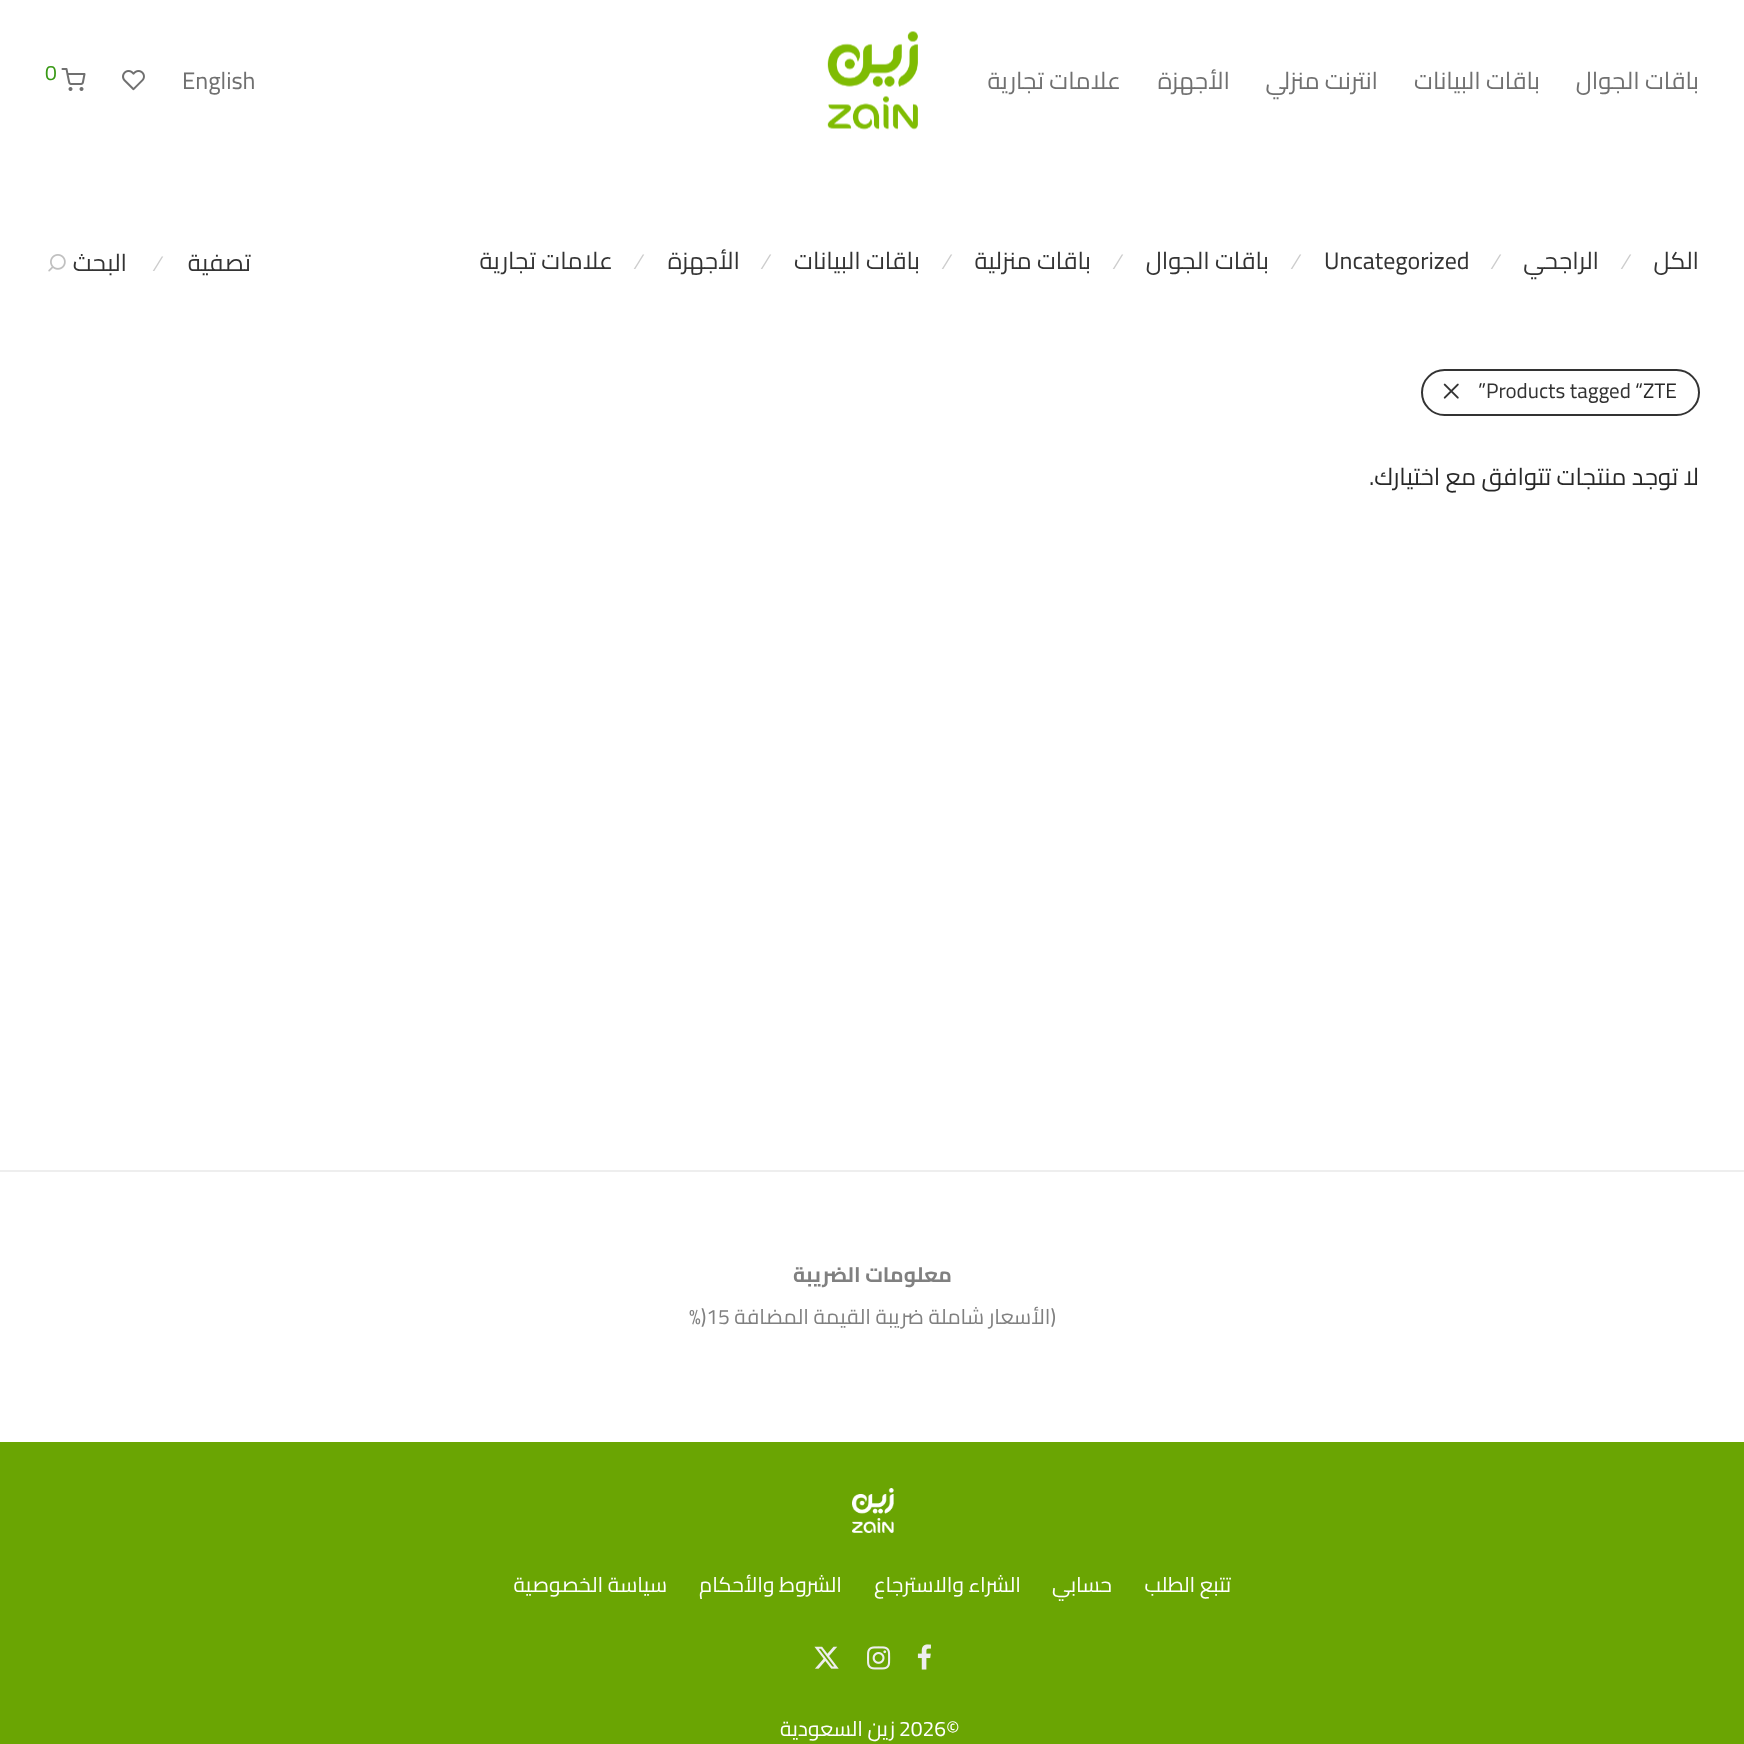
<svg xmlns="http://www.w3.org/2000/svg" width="1744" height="1744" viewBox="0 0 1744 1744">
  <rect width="100%" height="100%" fill="rgb(255,255,255)"/>
  <g font-family="Cairo" font-size="24" direction="rtl" fill="rgb(112,112,112)">
    <text x="1699" y="89">باقات الجوال</text>
    <text x="1540" y="89">باقات البيانات</text>
    <text x="1378" y="89">انترنت منزلي</text>
    <text x="1230" y="89">الأجهزة</text>
    <text x="1121" y="89">علامات تجارية</text>
  </g>
  <image x="827" y="31" width="91" height="99" href="pic1.png"/>
  <text x="182" y="89" font-family="Cairo" font-size="24" fill="rgb(112,112,112)">English</text>
  <image x="122" y="70" width="23" height="21" href="pic2.png"/>
  <image x="61" y="68" width="25" height="23" href="pic3.png"/>
  <text x="45" y="80" font-family="Cairo" font-size="21" fill="rgb(57,153,22)">0</text>
  <text x="1699" y="269" font-family="Cairo" font-size="24" direction="rtl" fill="rgb(51,51,51)">الكل</text>
  <text x="1625" y="269" font-family="Liberation Sans" font-size="21" fill="rgb(204,204,204)">⁄</text>
  <text x="1599" y="269" font-family="Cairo" font-size="24" direction="rtl" fill="rgb(51,51,51)">الراجحي</text>
  <text x="1495" y="269" font-family="Liberation Sans" font-size="21" fill="rgb(204,204,204)">⁄</text>
  <text x="1324" y="269" font-family="Cairo" font-size="24" fill="rgb(51,51,51)">Uncategorized</text>
  <text x="1295" y="269" font-family="Liberation Sans" font-size="21" fill="rgb(204,204,204)">⁄</text>
  <text x="1269" y="269" font-family="Cairo" font-size="24" direction="rtl" fill="rgb(51,51,51)">باقات الجوال</text>
  <text x="1117" y="269" font-family="Liberation Sans" font-size="21" fill="rgb(204,204,204)">⁄</text>
  <text x="1091" y="269" font-family="Cairo" font-size="24" direction="rtl" fill="rgb(51,51,51)">باقات منزلية</text>
  <text x="946" y="269" font-family="Liberation Sans" font-size="21" fill="rgb(204,204,204)">⁄</text>
  <text x="920" y="269" font-family="Cairo" font-size="24" direction="rtl" fill="rgb(51,51,51)">باقات البيانات</text>
  <text x="765" y="269" font-family="Liberation Sans" font-size="21" fill="rgb(204,204,204)">⁄</text>
  <text x="740" y="269" font-family="Cairo" font-size="24" direction="rtl" fill="rgb(51,51,51)">الأجهزة</text>
  <text x="638" y="269" font-family="Liberation Sans" font-size="21" fill="rgb(204,204,204)">⁄</text>
  <g font-family="Cairo" font-size="24" direction="rtl" fill="rgb(51,51,51)">
    <text x="613" y="269">علامات تجارية</text>
    <text x="251" y="271">تصفية</text>
  </g>
  <text x="157" y="271" font-family="Liberation Sans" font-size="21" fill="rgb(204,204,204)">⁄</text>
  <text x="127" y="271" font-family="Cairo" font-size="24" direction="rtl" fill="rgb(51,51,51)">البحث</text>
  <image x="48" y="254" width="18" height="18" href="pic4.png"/>
  <rect x="1422" y="370" width="277" height="45" rx="22.5" fill="none" stroke="rgb(51,51,51)" stroke-width="2"/>
  <text x="1635" y="398" font-family="Cairo" font-size="21" fill="rgb(40,40,40)">“ZTE</text>
  <text x="1486" y="398" font-family="Cairo" font-size="21" fill="rgb(51,51,51)">Products tagged</text>
  <text x="1478" y="398" font-family="Cairo" font-size="21" fill="rgb(40,40,40)">”</text>
  <image x="1443" y="383" width="16" height="16" href="pic5.png"/>
  <text x="1699" y="485" font-family="Cairo" font-size="24" direction="rtl" fill="rgb(40,40,40)">لا توجد منتجات تتوافق مع اختيارك.</text>
  <rect x="0" y="1170" width="1744" height="2" fill="rgb(238,238,238)"/>
  <text x="952" y="1282" font-family="Cairo" font-size="21" font-weight="bold" direction="rtl" fill="rgb(128,128,128)">معلومات الضريبة</text>
  <text x="1056" y="1324" font-family="Cairo" font-size="21" direction="rtl" fill="rgb(128,128,128)">(الأسعار شاملة ضريبة القيمة المضافة</text>
  <text x="689" y="1324" font-family="Cairo" font-size="21" fill="rgb(128,128,128)">%)15</text>
  <rect x="0" y="1442" width="1744" height="302" fill="rgb(106,165,3)"/>
  <image x="852" y="1488" width="42" height="45" href="pic6.png"/>
  <g font-family="Cairo" font-size="21" direction="rtl" fill="rgb(255,255,255)">
    <text x="1231" y="1592">تتبع الطلب</text>
    <text x="1112" y="1592">حسابي</text>
    <text x="1021" y="1592">الشراء والاسترجاع</text>
    <text x="842" y="1592">الشروط والأحكام</text>
    <text x="667" y="1592">سياسة الخصوصية</text>
  </g>
  <image x="917" y="1644" width="14" height="26" href="pic7.png"/>
  <image x="867" y="1646" width="24" height="24" href="pic8.png"/>
  <image x="814" y="1646" width="25" height="23" href="pic9.png"/>
  <text x="899" y="1736" font-family="Cairo" font-size="21" fill="rgb(255,255,255)">2026©</text>
  <text x="895" y="1736" font-family="Cairo" font-size="21" direction="rtl" fill="rgb(255,255,255)">زين السعودية</text>
</svg>
